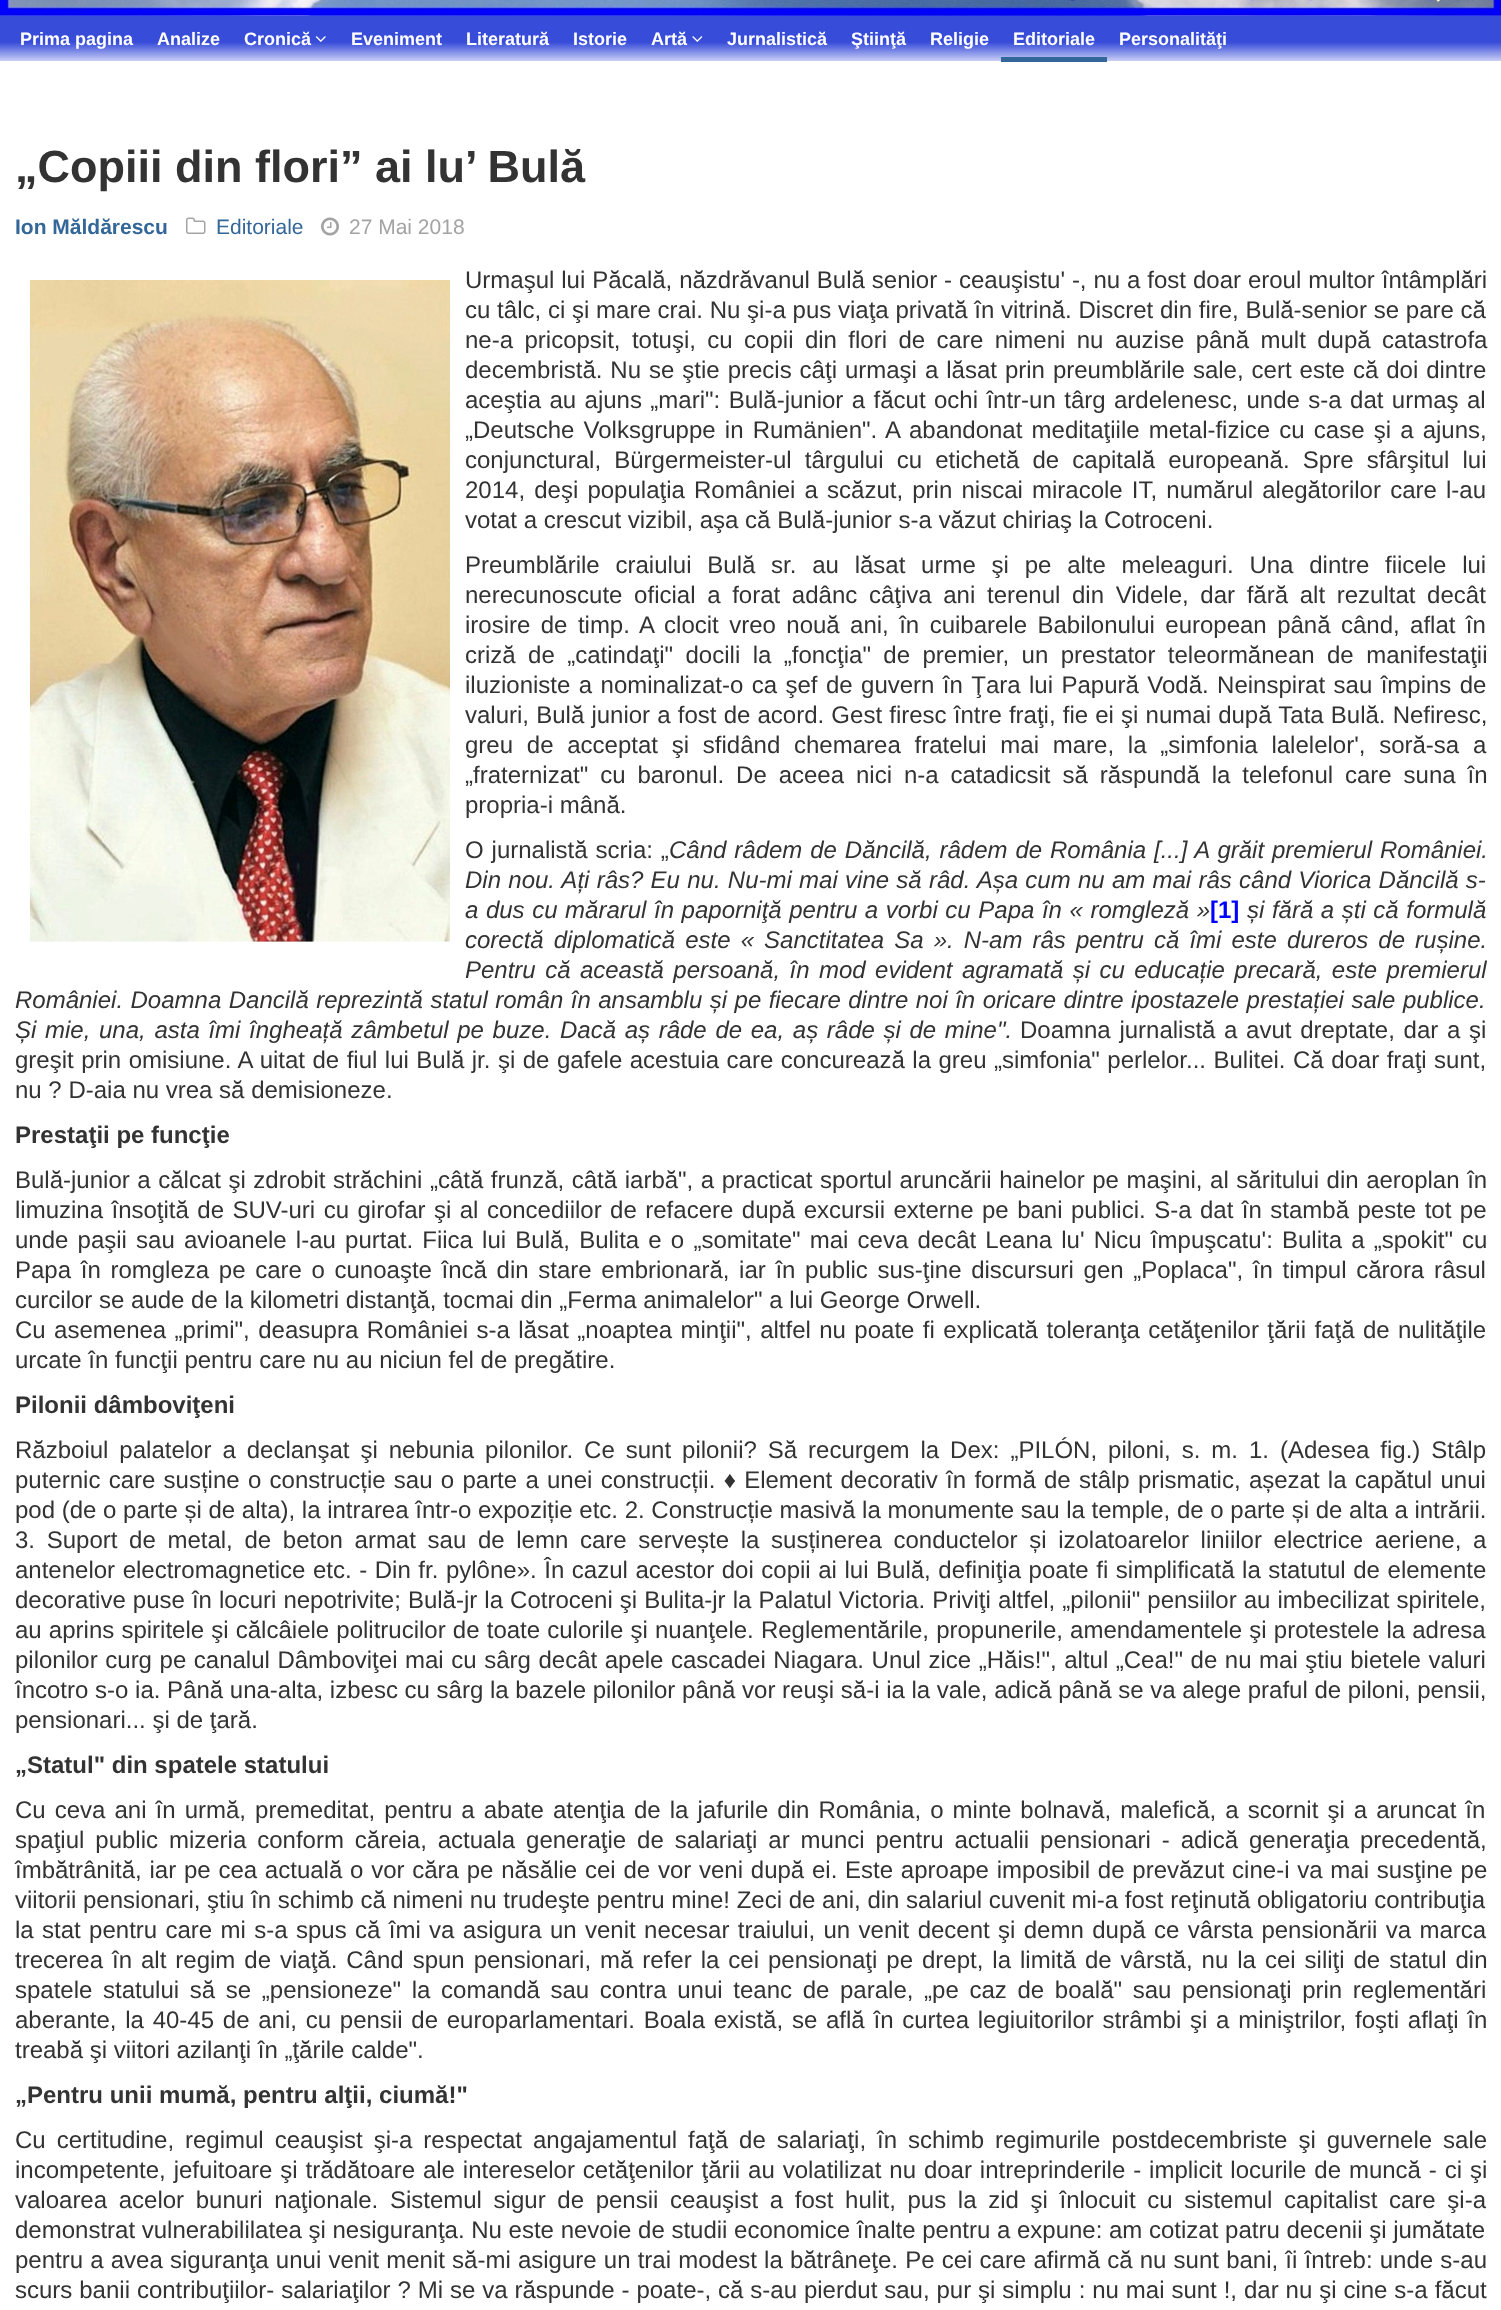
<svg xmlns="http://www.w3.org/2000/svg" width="1501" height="2310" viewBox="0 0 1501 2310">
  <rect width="100%" height="100%" fill="rgb(255,255,255)"/>
  <image x="0" y="0" width="1501" height="16" href="pic1.png"/>
  <image x="0" y="16" width="1501" height="45" href="pic2.png"/>
  <g font-family="Liberation Sans" font-size="18" font-weight="bold" fill="rgb(255,255,255)">
    <text x="20" y="45">Prima pagina</text>
    <text x="157" y="45">Analize</text>
    <text x="244" y="45">Cronică</text>
  </g>
  <image x="315" y="36" width="11" height="6" href="pic3.png"/>
  <g font-family="Liberation Sans" font-size="18" font-weight="bold" fill="rgb(255,255,255)">
    <text x="351" y="45">Eveniment</text>
    <text x="466" y="45">Literatură</text>
    <text x="573" y="45">Istorie</text>
    <text x="651" y="45">Artă</text>
  </g>
  <image x="692" y="36" width="11" height="6" href="pic4.png"/>
  <g font-family="Liberation Sans" font-size="18" font-weight="bold" fill="rgb(255,255,255)">
    <text x="727" y="45">Jurnalistică</text>
    <text x="851" y="45">Ştiinţă</text>
    <text x="930" y="45">Religie</text>
    <text x="1013" y="45">Editoriale</text>
  </g>
  <rect x="1001" y="57" width="106" height="5" fill="rgb(51,102,153)"/>
  <text x="1119" y="45" font-family="Liberation Sans" font-size="18" font-weight="bold" fill="rgb(255,255,255)">Personalităţi</text>
  <text x="15" y="182" font-family="Arimo" font-size="45" font-weight="bold" fill="rgb(51,51,51)">„Copiii din flori” ai lu’ Bulă</text>
  <text x="15" y="234" font-family="Liberation Sans" font-size="21" font-weight="bold" fill="rgb(51,102,153)">Ion Măldărescu</text>
  <image x="186" y="217" width="20" height="17" href="pic5.png"/>
  <text x="216" y="234" font-family="Liberation Sans" font-size="21" fill="rgb(51,102,153)">Editoriale</text>
  <image x="321" y="217" width="18" height="19" href="pic6.png"/>
  <text x="349" y="234" font-family="Liberation Sans" font-size="21" fill="rgb(163,163,163)">27 Mai 2018</text>
  <g font-family="Liberation Sans" font-size="24" fill="rgb(51,51,51)">
    <text>
      <tspan x="465" y="288" word-spacing="0.25">Urmaşul lui Păcală, năzdrăvanul Bulă senior - ceauşistu' -, nu a fost doar eroul multor întâmplări</tspan>
      <tspan x="465" y="318" word-spacing="0.1">cu tâlc, ci şi mare crai. Nu şi-a pus viaţa privată în vitrină. Discret din fire, Bulă-senior se pare că</tspan>
      <tspan x="465" y="348" word-spacing="4.75">ne-a pricopsit, totuşi, cu copii din flori de care nimeni nu auzise până mult după catastrofa</tspan>
      <tspan x="465" y="378" word-spacing="1.3">decembristă. Nu se ştie precis câţi urmaşi a lăsat prin preumblările sale, cert este că doi dintre</tspan>
      <tspan x="465" y="408" word-spacing="1.75">aceştia au ajuns „mari": Bulă-junior a făcut ochi într-un târg ardelenesc, unde s-a dat urmaş al</tspan>
      <tspan x="465" y="438" word-spacing="2.5">„Deutsche Volksgruppe in Rumänien". A abandonat meditaţiile metal-fizice cu case şi a ajuns,</tspan>
      <tspan x="465" y="468" word-spacing="6.5">conjunctural, Bürgermeister-ul târgului cu etichetă de capitală europeană. Spre sfârşitul lui</tspan>
      <tspan x="465" y="498" word-spacing="2.5">2014, deşi populaţia României a scăzut, prin niscai miracole IT, numărul alegătorilor care l-au</tspan>
      <tspan x="465" y="528">votat a crescut vizibil, aşa că Bulă-junior s-a văzut chiriaş la Cotroceni.</tspan>
      <tspan x="465" y="573" word-spacing="9.1">Preumblările craiului Bulă sr. au lăsat urme şi pe alte meleaguri. Una dintre fiicele lui</tspan>
      <tspan x="465" y="603" word-spacing="5">nerecunoscute oficial a forat adânc câţiva ani terenul din Videle, dar fără alt rezultat decât</tspan>
      <tspan x="465" y="633" word-spacing="3.75">irosire de timp. A clocit vreo nouă ani, în cuibarele Babilonului european până când, aflat în</tspan>
      <tspan x="465" y="663" word-spacing="5.75">criză de „catindaţi" docili la „foncţia" de premier, un prestator teleormănean de manifestaţii</tspan>
      <tspan x="465" y="693" word-spacing="1.75">iluzioniste a nominalizat-o ca şef de guvern în Ţara lui Papură Vodă. Neinspirat sau împins de</tspan>
      <tspan x="465" y="723" word-spacing="0.5">valuri, Bulă junior a fost de acord. Gest firesc între fraţi, fie ei şi numai după Tata Bulă. Nefiresc,</tspan>
      <tspan x="465" y="753" word-spacing="7.1">greu de acceptat şi sfidând chemarea fratelui mai mare, la „simfonia lalelelor', soră-sa a</tspan>
      <tspan x="465" y="783" word-spacing="5.25">„fraternizat" cu baronul. De aceea nici n-a catadicsit să răspundă la telefonul care suna în</tspan>
      <tspan x="465" y="813">propria-i mână.</tspan>
      <tspan x="465" y="858" word-spacing="1.25">O jurnalistă scria: „</tspan>
    </text>
  </g>
  <g font-family="Liberation Sans" font-size="24" font-style="italic" fill="rgb(51,51,51)">
    <text x="669" y="858" word-spacing="1.25">Când râdem de Dăncilă, râdem de România [...] A grăit premierul României.</text>
    <text>
      <tspan x="465" y="888" word-spacing="0.6">Din nou. Ați râs? Eu nu. Nu-mi mai vine să râd. Așa cum nu am mai râs când Viorica Dăncilă s-</tspan>
      <tspan x="465" y="918" word-spacing="0.9">a dus cu mărarul în paporniţă pentru a vorbi cu Papa în « romgleză »</tspan>
    </text>
  </g>
  <text x="1210" y="918" font-family="Liberation Sans" font-size="24" font-weight="bold" fill="rgb(0,0,255)">[1]</text>
  <g font-family="Liberation Sans" font-size="24" font-style="italic" fill="rgb(51,51,51)">
    <text x="1247" y="918" word-spacing="0.9">și fără a ști că formulă</text>
    <text>
      <tspan x="465" y="948" word-spacing="3.4">corectă diplomatică este « Sanctitatea Sa ». N-am râs pentru că îmi este dureros de rușine.</tspan>
      <tspan x="465" y="978" word-spacing="2.75">Pentru că această persoană, în mod evident agramată și cu educație precară, este premierul</tspan>
    </text>
    <text>
      <tspan x="15" y="1008" word-spacing="0.8">României. Doamna Dancilă reprezintă statul român în ansamblu și pe fiecare dintre noi în oricare dintre ipostazele prestației sale publice.</tspan>
      <tspan x="15" y="1038" word-spacing="2">Și mie, una, asta îmi îngheață zâmbetul pe buze. Dacă aș râde de ea, aș râde și de mine".</tspan>
    </text>
  </g>
  <g font-family="Liberation Sans" font-size="24" fill="rgb(51,51,51)">
    <text x="1020" y="1038" word-spacing="2">Doamna jurnalistă a avut dreptate, dar a şi</text>
    <text>
      <tspan x="15" y="1068" word-spacing="0.8">greşit prin omisiune. A uitat de fiul lui Bulă jr. şi de gafele acestuia care concurează la greu „simfonia" perlelor... Bulitei. Că doar fraţi sunt,</tspan>
      <tspan x="15" y="1098">nu ? D-aia nu vrea să demisioneze.</tspan>
    </text>
  </g>
  <text x="15" y="1143" font-family="Liberation Sans" font-size="24" font-weight="bold" fill="rgb(51,51,51)">Prestaţii pe funcţie</text>
  <g font-family="Liberation Sans" font-size="24" fill="rgb(51,51,51)">
    <text>
      <tspan x="15" y="1188" word-spacing="0.9">Bulă-junior a călcat şi zdrobit străchini „câtă frunză, câtă iarbă", a practicat sportul aruncării hainelor pe maşini, al săritului din aeroplan în</tspan>
      <tspan x="15" y="1218" word-spacing="1.8">limuzina însoţită de SUV-uri cu girofar şi al concediilor de refacere după excursii externe pe bani publici. S-a dat în stambă peste tot pe</tspan>
      <tspan x="15" y="1248" word-spacing="2.5">unde paşii sau avioanele l-au purtat. Fiica lui Bulă, Bulita e o „somitate" mai ceva decât Leana lu' Nicu împuşcatu': Bulita a „spokit" cu</tspan>
      <tspan x="15" y="1278" word-spacing="3">Papa în romgleza pe care o cunoaşte încă din stare embrionară, iar în public sus-ţine discursuri gen „Poplaca", în timpul cărora râsul</tspan>
      <tspan x="15" y="1308">curcilor se aude de la kilometri distanţă, tocmai din „Ferma animalelor" a lui George Orwell.</tspan>
      <tspan x="15" y="1338" word-spacing="1.75">Cu asemenea „primi", deasupra României s-a lăsat „noaptea minţii", altfel nu poate fi explicată toleranţa cetăţenilor ţării faţă de nulităţile</tspan>
      <tspan x="15" y="1368">urcate în funcţii pentru care nu au niciun fel de pregătire.</tspan>
    </text>
  </g>
  <text x="15" y="1413" font-family="Liberation Sans" font-size="24" font-weight="bold" fill="rgb(51,51,51)">Pilonii dâmboviţeni</text>
  <g font-family="Liberation Sans" font-size="24" fill="rgb(51,51,51)">
    <text>
      <tspan x="15" y="1458" word-spacing="4.3">Războiul palatelor a declanşat şi nebunia pilonilor. Ce sunt pilonii? Să recurgem la Dex: „PILÓN, piloni, s. m. 1. (Adesea fig.) Stâlp</tspan>
      <tspan x="15" y="1488" word-spacing="1.6">puternic care susține o construcție sau o parte a unei construcții. ♦ Element decorativ în formă de stâlp prismatic, așezat la capătul unui</tspan>
      <tspan x="15" y="1518">pod (de o parte și de alta), la intrarea într-o expoziție etc. 2. Construcție masivă la monumente sau la temple, de o parte și de alta a intrării.</tspan>
      <tspan x="15" y="1548" word-spacing="5">3. Suport de metal, de beton armat sau de lemn care servește la susținerea conductelor și izolatoarelor liniilor electrice aeriene, a</tspan>
      <tspan x="15" y="1578" word-spacing="0.9">antenelor electromagnetice etc. - Din fr. pylône». În cazul acestor doi copii ai lui Bulă, definiţia poate fi simplificată la statutul de elemente</tspan>
      <tspan x="15" y="1608" word-spacing="0.4">decorative puse în locuri nepotrivite; Bulă-jr la Cotroceni şi Bulita-jr la Palatul Victoria. Priviţi altfel, „pilonii" pensiilor au imbecilizat spiritele,</tspan>
      <tspan x="15" y="1638" word-spacing="0.5">au aprins spiritele şi călcâiele politrucilor de toate culorile şi nuanţele. Reglementările, propunerile, amendamentele şi protestele la adresa</tspan>
      <tspan x="15" y="1668" word-spacing="0.9">pilonilor curg pe canalul Dâmboviţei mai cu sârg decât apele cascadei Niagara. Unul zice „Hăis!", altul „Cea!" de nu mai ştiu bietele valuri</tspan>
      <tspan x="15" y="1698">încotro s-o ia. Până una-alta, izbesc cu sârg la bazele pilonilor până vor reuşi să-i ia la vale, adică până se va alege praful de piloni, pensii,</tspan>
      <tspan x="15" y="1728">pensionari... şi de ţară.</tspan>
    </text>
  </g>
  <text x="15" y="1773" font-family="Liberation Sans" font-size="24" font-weight="bold" fill="rgb(51,51,51)">„Statul" din spatele statului</text>
  <g font-family="Liberation Sans" font-size="24" fill="rgb(51,51,51)">
    <text>
      <tspan x="15" y="1818" word-spacing="2.4">Cu ceva ani în urmă, premeditat, pentru a abate atenţia de la jafurile din România, o minte bolnavă, malefică, a scornit şi a aruncat în</tspan>
      <tspan x="15" y="1848" word-spacing="4.25">spaţiul public mizeria conform căreia, actuala generaţie de salariaţi ar munci pentru actualii pensionari - adică generaţia precedentă,</tspan>
      <tspan x="15" y="1878" word-spacing="1.1">îmbătrânită, iar pe cea actuală o vor căra pe năsălie cei de vor veni după ei. Este aproape imposibil de prevăzut cine-i va mai susţine pe</tspan>
      <tspan x="15" y="1908">viitorii pensionari, ştiu în schimb că nimeni nu trudeşte pentru mine! Zeci de ani, din salariul cuvenit mi-a fost reţinută obligatoriu contribuţia</tspan>
      <tspan x="15" y="1938" word-spacing="1.7">la stat pentru care mi s-a spus că îmi va asigura un venit necesar traiului, un venit decent şi demn după ce vârsta pensionării va marca</tspan>
      <tspan x="15" y="1968" word-spacing="2.3">trecerea în alt regim de viaţă. Când spun pensionari, mă refer la cei pensionaţi pe drept, la limită de vârstă, nu la cei siliţi de statul din</tspan>
      <tspan x="15" y="1998" word-spacing="4">spatele statului să se „pensioneze" la comandă sau contra unui teanc de parale, „pe caz de boală" sau pensionaţi prin reglementări</tspan>
      <tspan x="15" y="2028" word-spacing="2.1">aberante, la 40-45 de ani, cu pensii de europarlamentari. Boala există, se află în curtea legiuitorilor strâmbi şi a miniştrilor, foşti aflaţi în</tspan>
      <tspan x="15" y="2058">treabă şi viitori azilanţi în „ţările calde".</tspan>
    </text>
  </g>
  <text x="15" y="2103" font-family="Liberation Sans" font-size="24" font-weight="bold" fill="rgb(51,51,51)">„Pentru unii mumă, pentru alţii, ciumă!"</text>
  <g font-family="Liberation Sans" font-size="24" fill="rgb(51,51,51)">
    <text>
      <tspan x="15" y="2148" word-spacing="4.3">Cu certitudine, regimul ceauşist şi-a respectat angajamentul faţă de salariaţi, în schimb regimurile postdecembriste şi guvernele sale</tspan>
      <tspan x="15" y="2178" word-spacing="1.25">incompetente, jefuitoare şi trădătoare ale intereselor cetăţenilor ţării au volatilizat nu doar intreprinderile - implicit locurile de muncă - ci şi</tspan>
      <tspan x="15" y="2208" word-spacing="5">valoarea acelor bunuri naţionale. Sistemul sigur de pensii ceauşist a fost hulit, pus la zid şi înlocuit cu sistemul capitalist care şi-a</tspan>
      <tspan x="15" y="2238">demonstrat vulnerabililatea şi nesiguranţa. Nu este nevoie de studii economice înalte pentru a expune: am cotizat patru decenii şi jumătate</tspan>
      <tspan x="15" y="2268" word-spacing="0.5">pentru a avea siguranţa unui venit menit să-mi asigure un trai modest la bătrâneţe. Pe cei care afirmă că nu sunt bani, îi întreb: unde s-au</tspan>
      <tspan x="15" y="2298" word-spacing="0.25">scurs banii contribuţiilor- salariaţilor ? Mi se va răspunde - poate-, că s-au pierdut sau, pur şi simplu : nu mai sunt !, dar nu şi cine s-a făcut</tspan>
    </text>
  </g>
  <image x="30" y="280" width="420" height="662" href="pic7.png"/>
</svg>
